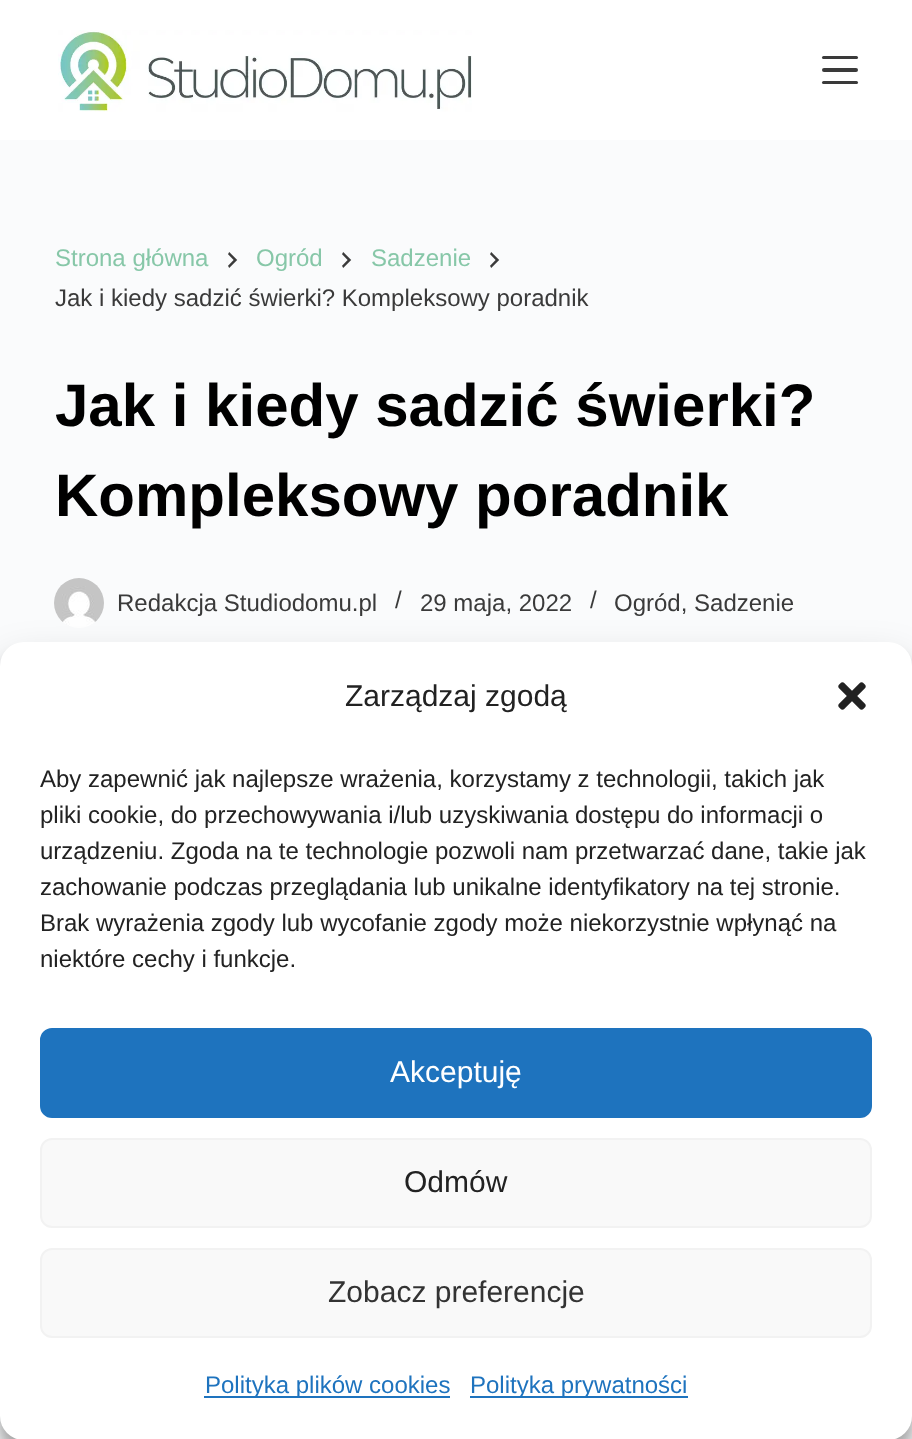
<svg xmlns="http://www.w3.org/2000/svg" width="912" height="1439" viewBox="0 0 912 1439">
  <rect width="100%" height="100%" fill="rgb(250,251,252)"/>
  <rect x="0" y="0" width="912" height="140" fill="rgb(255,255,255)"/>
  <image x="58" y="30" width="414" height="82" href="pic1.png"/>
  <rect x="822" y="56" width="36" height="3" rx="1.5" fill="rgb(58,58,58)"/>
  <rect x="822" y="68" width="36" height="4" rx="2" fill="rgb(58,58,58)"/>
  <rect x="822" y="81" width="36" height="3" rx="1.5" fill="rgb(58,58,58)"/>
  <text x="55" y="266" font-family="Liberation Sans" font-size="24" fill="rgb(135,199,168)">Strona główna</text>
  <image x="228" y="252" width="10" height="16" href="pic2.png"/>
  <text x="256" y="266" font-family="Liberation Sans" font-size="24" fill="rgb(135,199,168)">Ogród</text>
  <image x="342" y="252" width="10" height="16" href="pic2.png"/>
  <text x="371" y="266" font-family="Liberation Sans" font-size="24" fill="rgb(135,199,168)">Sadzenie</text>
  <image x="490" y="252" width="10" height="16" href="pic2.png"/>
  <text x="55" y="306" font-family="Liberation Sans" font-size="24" fill="rgb(58,58,58)">Jak i kiedy sadzić świerki? Kompleksowy poradnik</text>
  <g font-family="Liberation Sans" font-size="60" font-weight="bold" fill="rgb(0,0,0)">
    <text>
      <tspan x="55" y="426">Jak i kiedy sadzić świerki?</tspan>
      <tspan x="55" y="516">Kompleksowy poradnik</tspan>
    </text>
  </g>
  <image x="54" y="578" width="50" height="50" href="pic3.png"/>
  <g font-family="Liberation Sans" font-size="24" fill="rgb(58,58,58)">
    <text x="117" y="611">Redakcja Studiodomu.pl</text>
    <text x="395" y="608">/</text>
    <text x="420" y="611">29 maja, 2022</text>
    <text x="590" y="608">/</text>
    <text x="614" y="611">Ogród, Sadzenie</text>
  </g>
  <rect x="0" y="654" width="912" height="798" rx="24" fill="rgba(0,0,0,0.23)" filter="blur(6px)"/>
  <rect x="0" y="662" width="912" height="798" rx="24" fill="rgba(0,0,0,0.19)" filter="blur(20px)"/>
  <rect x="0" y="642" width="912" height="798" rx="24" fill="rgb(255,255,255)"/>
  <text x="345" y="706" font-family="Liberation Sans" font-size="30" fill="rgb(34,34,34)">Zarządzaj zgodą</text>
  <image x="838" y="682" width="28" height="28" href="pic4.png"/>
  <g font-family="Liberation Sans" font-size="24" fill="rgb(34,34,34)">
    <text>
      <tspan x="40" y="787">Aby zapewnić jak najlepsze wrażenia, korzystamy z technologii, takich jak</tspan>
      <tspan x="40" y="823">pliki cookie, do przechowywania i/lub uzyskiwania dostępu do informacji o</tspan>
      <tspan x="40" y="859">urządzeniu. Zgoda na te technologie pozwoli nam przetwarzać dane, takie jak</tspan>
      <tspan x="40" y="895">zachowanie podczas przeglądania lub unikalne identyfikatory na tej stronie.</tspan>
      <tspan x="40" y="931">Brak wyrażenia zgody lub wycofanie zgody może niekorzystnie wpłynąć na</tspan>
      <tspan x="40" y="967">niektóre cechy i funkcje.</tspan>
    </text>
  </g>
  <rect x="41" y="1029" width="830" height="88" rx="11" fill="rgb(30,115,190)" stroke="rgb(30,115,190)" stroke-width="2"/>
  <text x="390" y="1082" font-family="Liberation Sans" font-size="30" fill="rgb(255,255,255)">Akceptuję</text>
  <rect x="41" y="1139" width="830" height="88" rx="11" fill="rgb(249,249,249)" stroke="rgb(242,242,242)" stroke-width="2"/>
  <text x="404" y="1192" font-family="Liberation Sans" font-size="30" fill="rgb(34,34,34)">Odmów</text>
  <rect x="41" y="1249" width="830" height="88" rx="11" fill="rgb(249,249,249)" stroke="rgb(242,242,242)" stroke-width="2"/>
  <text x="328" y="1302" font-family="Liberation Sans" font-size="30" fill="rgb(51,51,51)">Zobacz preferencje</text>
  <rect x="204" y="1396" width="246" height="2" fill="rgb(30,115,190)"/>
  <text x="205" y="1393" font-family="Liberation Sans" font-size="24" fill="rgb(30,115,190)">Polityka plików cookies</text>
  <rect x="470" y="1396" width="218" height="2" fill="rgb(30,115,190)"/>
  <text x="470" y="1393" font-family="Liberation Sans" font-size="24" fill="rgb(30,115,190)">Polityka prywatności</text>
</svg>
